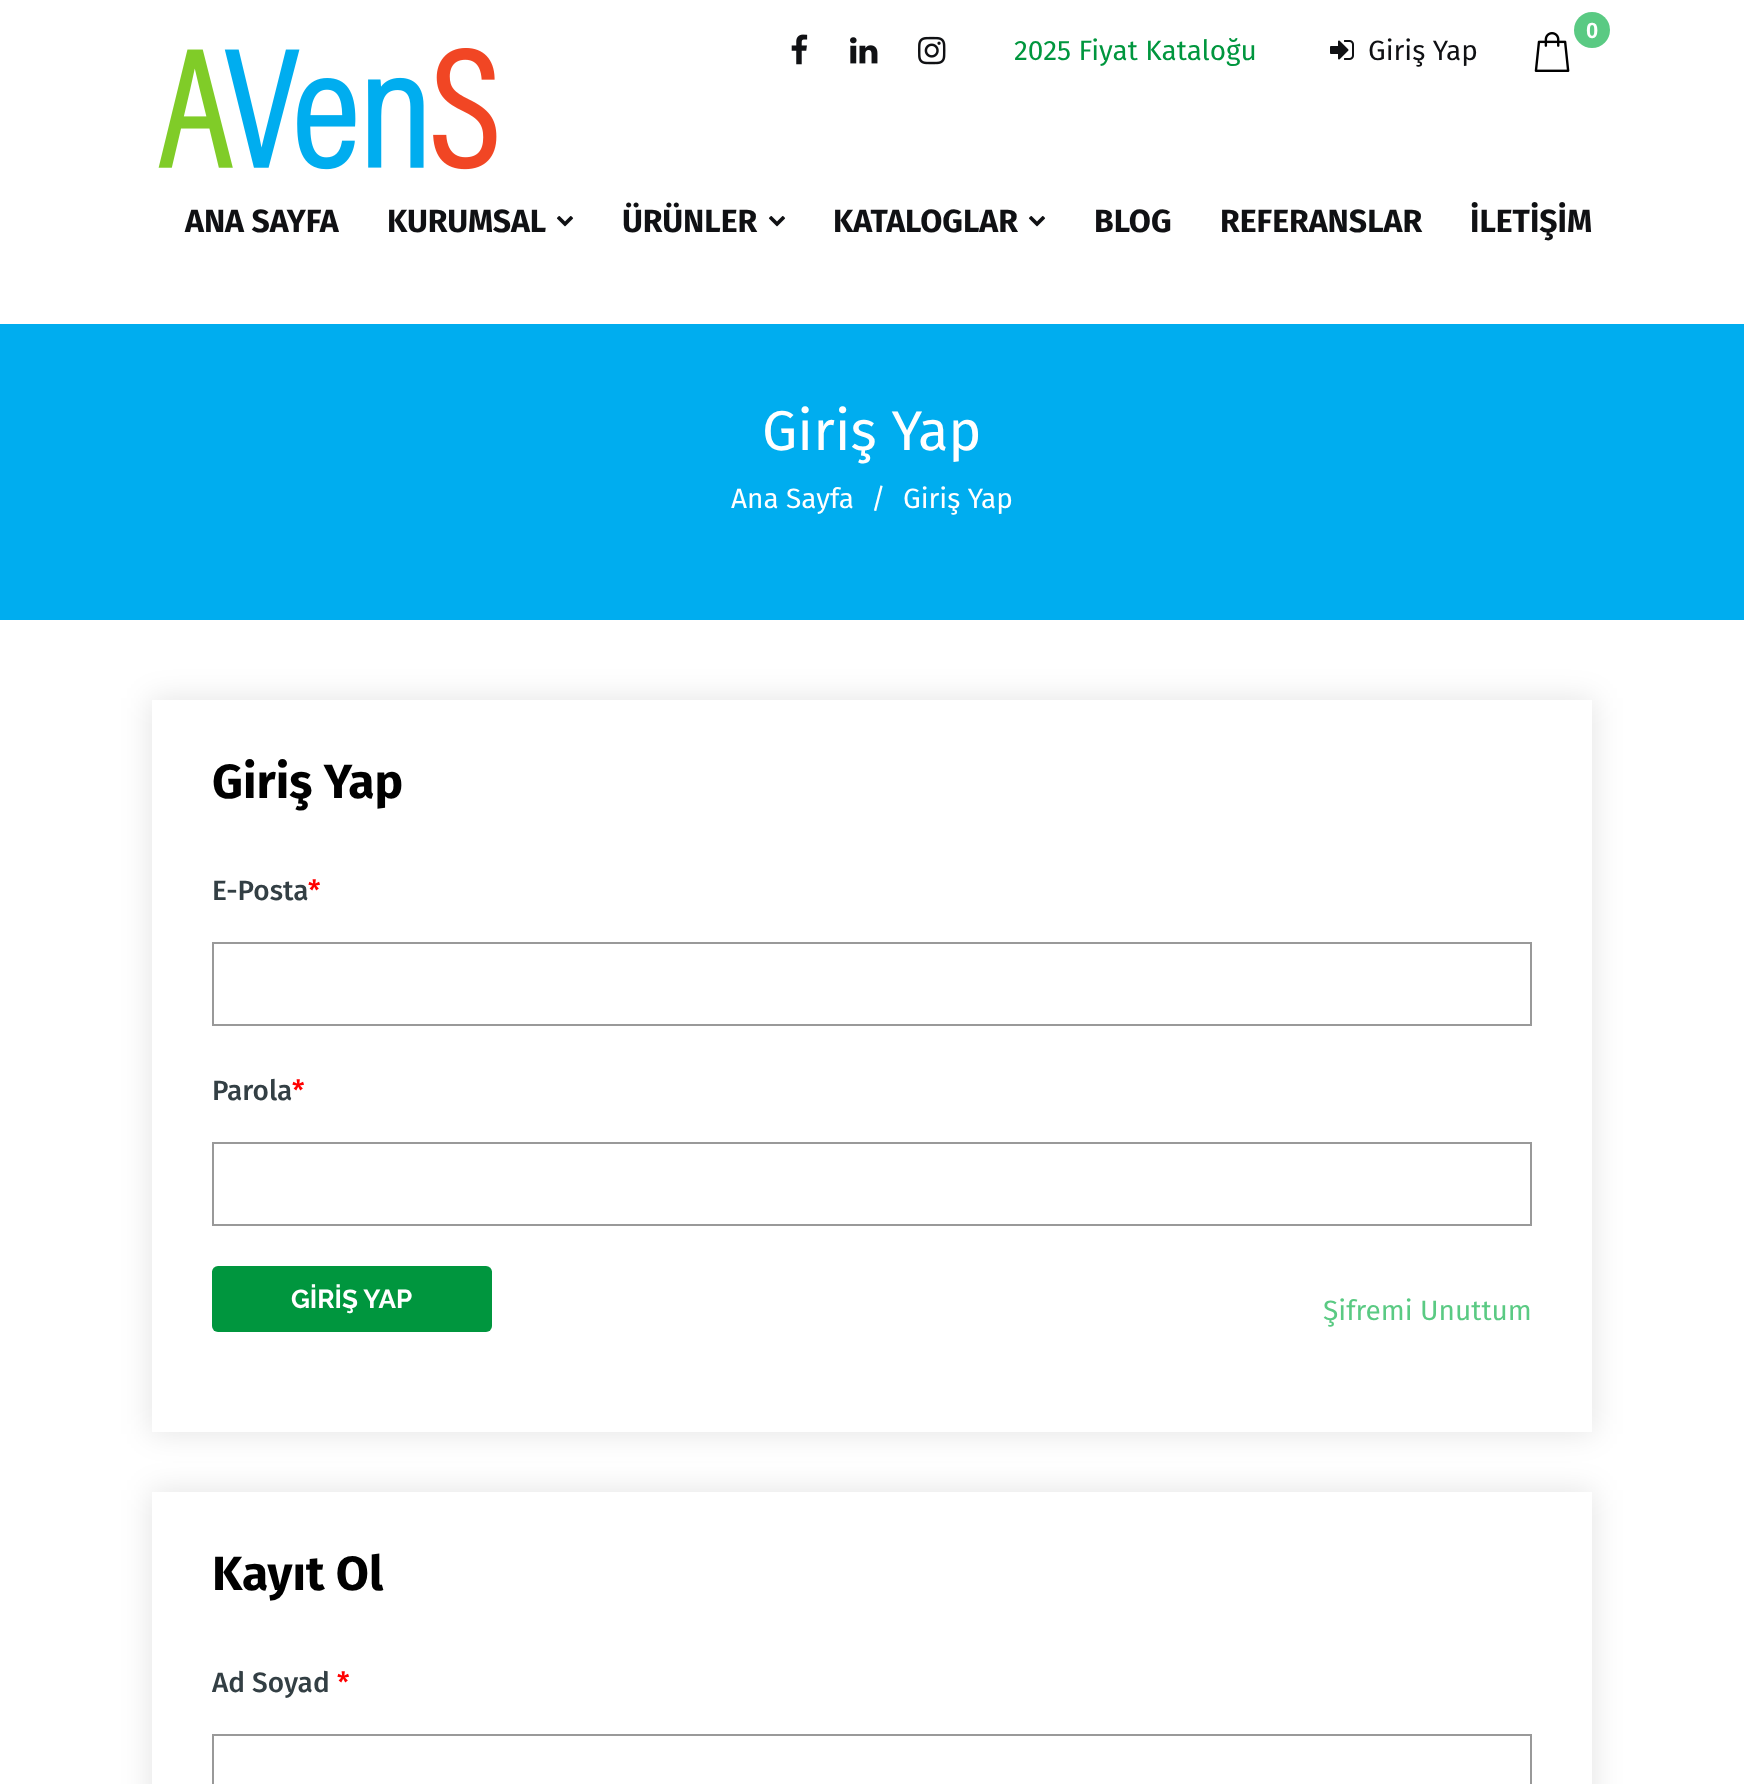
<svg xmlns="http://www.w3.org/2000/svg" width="1744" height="1784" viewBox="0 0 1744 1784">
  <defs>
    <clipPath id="clip1"><path d="M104 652H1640V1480H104ZM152 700H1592V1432H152Z" clip-rule="evenodd"/></clipPath>
    <clipPath id="clip2"><path d="M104 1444H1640V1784H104ZM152 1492H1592V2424H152Z" clip-rule="evenodd"/></clipPath>
  </defs>
  <rect width="100%" height="100%" fill="rgb(255,255,255)"/>
  <image x="1534" y="32" width="36" height="40" href="pic1.png"/>
  <circle cx="1592" cy="30" r="18" fill="rgb(90,202,131)"/>
  <text x="1586" y="38" font-family="Liberation Sans" font-size="22" font-weight="bold" fill="rgb(255,255,255)">0</text>
  <image x="791" y="34" width="17" height="31" href="pic2.png"/>
  <image x="850" y="37" width="28" height="27" href="pic3.png"/>
  <image x="918" y="36" width="28" height="29" href="pic4.png"/>
  <text x="1014" y="60" font-family="Fira Sans" font-size="28" fill="rgb(0,150,62)">2025 Fiyat Kataloğu</text>
  <image x="1330" y="40" width="24" height="20" href="pic5.png"/>
  <text x="1368" y="60" font-family="Fira Sans" font-size="28" fill="rgb(16,17,20)">Giriş Yap</text>
  <g font-family="Fira Sans" font-size="32" font-weight="bold" fill="rgb(16,17,20)">
    <text x="185" y="232">ANA SAYFA</text>
    <text x="387" y="232">KURUMSAL</text>
  </g>
  <image x="556" y="216" width="18" height="11" href="pic6.png"/>
  <text x="622" y="232" font-family="Fira Sans" font-size="32" font-weight="bold" fill="rgb(16,17,20)">ÜRÜNLER</text>
  <image x="768" y="216" width="18" height="11" href="pic6.png"/>
  <text x="833" y="232" font-family="Fira Sans" font-size="32" font-weight="bold" fill="rgb(16,17,20)">KATALOGLAR</text>
  <image x="1028" y="216" width="18" height="11" href="pic6.png"/>
  <g font-family="Fira Sans" font-size="32" font-weight="bold" fill="rgb(16,17,20)">
    <text x="1094" y="232">BLOG</text>
    <text x="1220" y="232">REFERANSLAR</text>
    <text x="1470" y="232">İLETİŞİM</text>
  </g>
  <image x="158" y="48" width="339" height="122" href="pic7.png"/>
  <rect x="0" y="324" width="1744" height="296" fill="rgb(0,173,239)"/>
  <text x="762" y="450" font-family="Fira Sans" font-size="56" fill="rgb(255,255,255)">Giriş Yap</text>
  <g font-family="Fira Sans" font-size="28" fill="rgb(255,255,255)">
    <text x="731" y="508">Ana Sayfa</text>
    <text x="871" y="508">/</text>
    <text x="903" y="508">Giriş Yap</text>
  </g>
  <g clip-path="url(#clip1)">
    <rect x="150" y="698" width="1444" height="736" fill="rgba(0,0,0,0.1)" filter="blur(15px)"/>
  </g>
  <text x="212" y="798" font-family="Fira Sans" font-size="48" font-weight="bold" fill="rgb(0,0,0)">Giriş Yap</text>
  <text x="212" y="900" font-family="Fira Sans" font-size="28" font-weight="500" fill="rgb(51,63,68)">E-Posta</text>
  <text x="308" y="900" font-family="Fira Sans" font-size="28" font-weight="500" fill="rgb(255,0,0)">*</text>
  <rect x="213" y="943" width="1318" height="82" fill="none" stroke="rgb(153,153,153)" stroke-width="2"/>
  <text x="212" y="1100" font-family="Fira Sans" font-size="28" font-weight="500" fill="rgb(51,63,68)">Parola</text>
  <text x="292" y="1100" font-family="Fira Sans" font-size="28" font-weight="500" fill="rgb(255,0,0)">*</text>
  <rect x="213" y="1143" width="1318" height="82" fill="none" stroke="rgb(153,153,153)" stroke-width="2"/>
  <rect x="212" y="1266" width="280" height="66" rx="6" fill="rgb(0,150,62)"/>
  <text x="291" y="1308" font-family="Raleway" font-size="26" font-weight="bold" fill="rgb(255,255,255)">GİRİŞ YAP</text>
  <text x="1323" y="1320" font-family="Fira Sans" font-size="28" fill="rgb(90,202,131)">Şifremi Unuttum</text>
  <g clip-path="url(#clip2)">
    <rect x="150" y="1490" width="1444" height="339" fill="rgba(0,0,0,0.1)" filter="blur(15px)"/>
  </g>
  <text x="212" y="1590" font-family="Fira Sans" font-size="48" font-weight="bold" fill="rgb(0,0,0)">Kayıt Ol</text>
  <text x="212" y="1692" font-family="Fira Sans" font-size="28" font-weight="500" fill="rgb(51,63,68)">Ad Soyad</text>
  <text x="337" y="1692" font-family="Fira Sans" font-size="28" font-weight="500" fill="rgb(255,0,0)">*</text>
  <rect x="213" y="1735" width="1318" height="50" fill="none" stroke="rgb(153,153,153)" stroke-width="2"/>
</svg>
